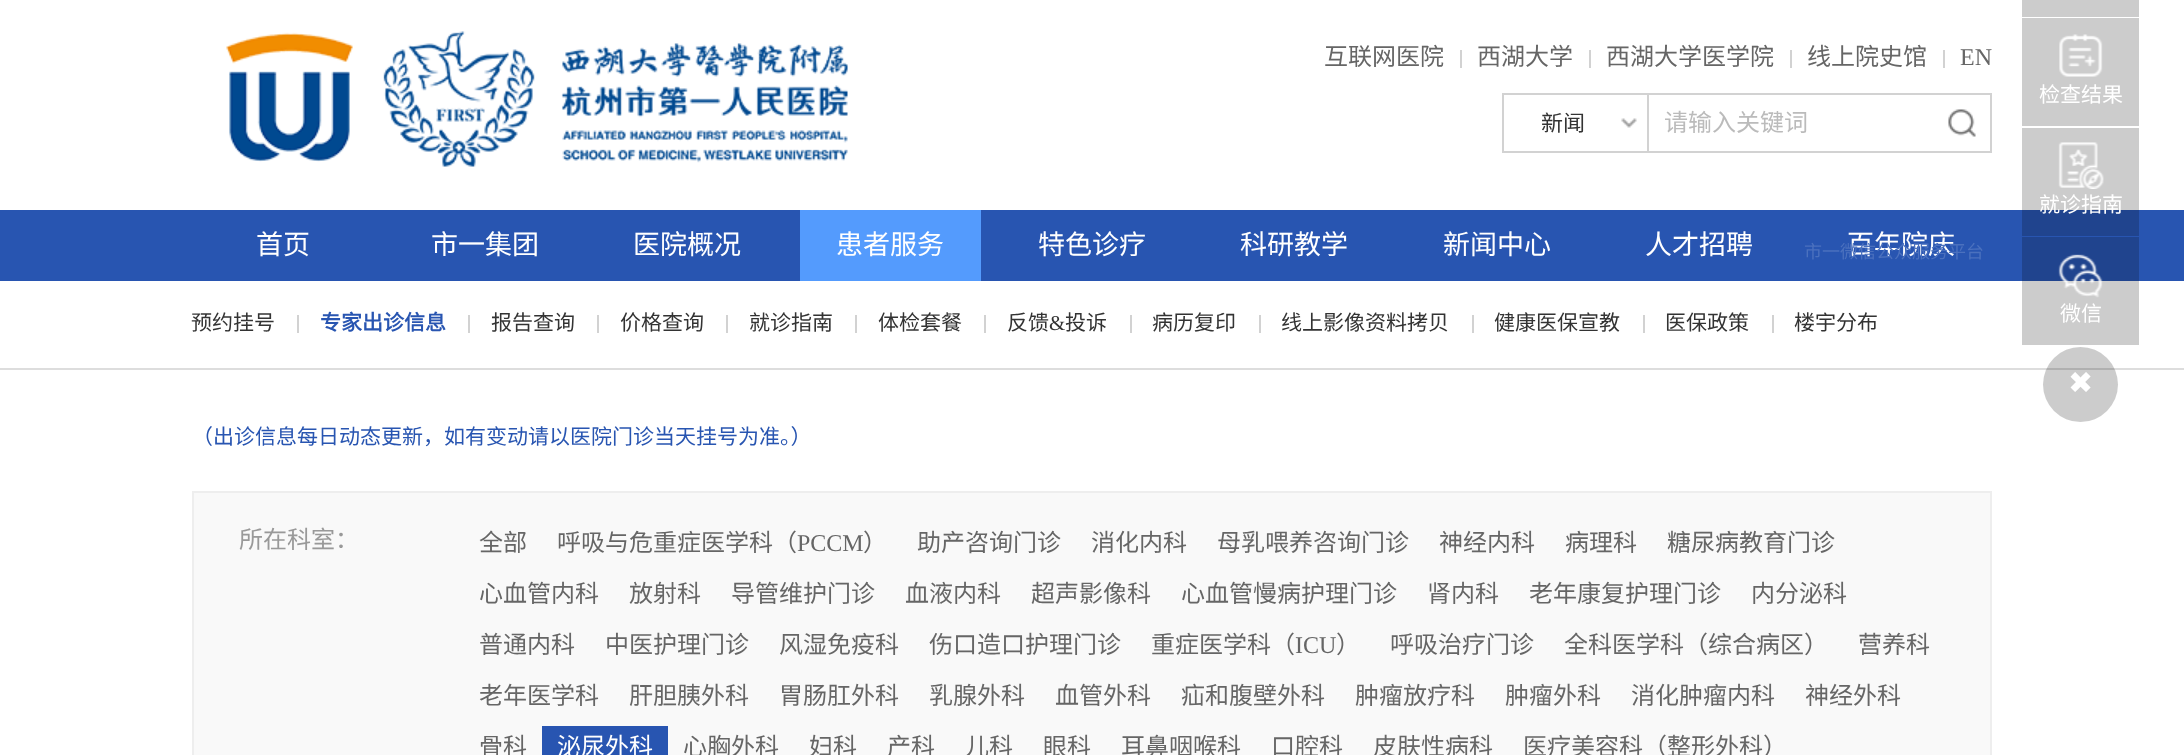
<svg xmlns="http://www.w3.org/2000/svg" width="2184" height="755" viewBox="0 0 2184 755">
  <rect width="100%" height="100%" fill="rgb(255,255,255)"/>
  <rect x="2022" y="281" width="117" height="64" fill="rgb(204,204,204)"/>
  <rect x="2022" y="128" width="117" height="82" fill="rgb(204,204,204)"/>
  <image x="226" y="31" width="622" height="136" href="pic1.png"/>
  <text x="1324" y="65" font-family="Noto Sans CJK SC" font-size="24" fill="rgb(102,102,102)">互联网医院</text>
  <rect x="1460" y="50" width="2" height="18" fill="rgb(210,210,210)"/>
  <text x="1477" y="65" font-family="Noto Sans CJK SC" font-size="24" fill="rgb(102,102,102)">西湖大学</text>
  <rect x="1589" y="50" width="2" height="18" fill="rgb(210,210,210)"/>
  <text x="1606" y="65" font-family="Noto Sans CJK SC" font-size="24" fill="rgb(102,102,102)">西湖大学医学院</text>
  <rect x="1790" y="50" width="2" height="18" fill="rgb(210,210,210)"/>
  <text x="1807" y="65" font-family="Noto Sans CJK SC" font-size="24" fill="rgb(102,102,102)">线上院史馆</text>
  <rect x="1943" y="50" width="2" height="18" fill="rgb(210,210,210)"/>
  <text x="1960" y="65" font-family="Liberation Serif" font-size="24" fill="rgb(102,102,102)">EN</text>
  <image x="1621" y="118" width="16" height="10" href="pic2.png"/>
  <rect x="1648" y="94" width="343" height="58" fill="none" stroke="rgb(210,210,210)" stroke-width="2"/>
  <rect x="1503" y="94" width="145" height="58" fill="none" stroke="rgb(210,210,210)" stroke-width="2"/>
  <text x="1541" y="131" font-family="Noto Sans CJK SC" font-size="22" fill="rgb(51,51,51)">新闻</text>
  <text x="1664" y="131" font-family="Noto Sans CJK SC" font-size="24" fill="rgb(187,187,187)">请输入关键词</text>
  <image x="1948" y="109" width="28" height="28" href="pic3.png"/>
  <rect x="0" y="210" width="2184" height="71" fill="rgb(40,85,177)"/>
  <rect x="2022" y="237" width="117" height="44" fill="rgb(32,68,142)"/>
  <rect x="2022" y="210" width="117" height="26" fill="rgb(32,68,142)"/>
  <rect x="800" y="210" width="181" height="71" fill="rgb(84,155,253)"/>
  <text x="836" y="254" font-family="Noto Sans CJK SC" font-size="27" fill="rgb(255,255,255)">患者服务</text>
  <rect x="0" y="368" width="2184" height="2" fill="rgb(221,221,221)"/>
  <text x="191" y="330" font-family="Noto Sans CJK SC" font-size="21" fill="rgb(51,51,51)">预约挂号</text>
  <rect x="297" y="315" width="2" height="18" fill="rgb(210,210,210)"/>
  <text x="320" y="330" font-family="Noto Sans CJK SC" font-size="21" font-weight="bold" fill="rgb(40,85,177)">专家出诊信息</text>
  <rect x="468" y="315" width="2" height="18" fill="rgb(210,210,210)"/>
  <text x="491" y="330" font-family="Noto Sans CJK SC" font-size="21" fill="rgb(51,51,51)">报告查询</text>
  <rect x="597" y="315" width="2" height="18" fill="rgb(210,210,210)"/>
  <text x="620" y="330" font-family="Noto Sans CJK SC" font-size="21" fill="rgb(51,51,51)">价格查询</text>
  <rect x="726" y="315" width="2" height="18" fill="rgb(210,210,210)"/>
  <text x="749" y="330" font-family="Noto Sans CJK SC" font-size="21" fill="rgb(51,51,51)">就诊指南</text>
  <rect x="855" y="315" width="2" height="18" fill="rgb(210,210,210)"/>
  <text x="878" y="330" font-family="Noto Sans CJK SC" font-size="21" fill="rgb(51,51,51)">体检套餐</text>
  <rect x="984" y="315" width="2" height="18" fill="rgb(210,210,210)"/>
  <text x="1007" y="330" font-family="Noto Sans CJK SC" font-size="21" fill="rgb(51,51,51)">反馈</text>
  <text x="1049" y="330" font-family="Liberation Serif" font-size="21" fill="rgb(51,51,51)">&amp;</text>
  <text x="1065" y="330" font-family="Noto Sans CJK SC" font-size="21" fill="rgb(51,51,51)">投诉</text>
  <rect x="1130" y="315" width="2" height="18" fill="rgb(210,210,210)"/>
  <text x="1152" y="330" font-family="Noto Sans CJK SC" font-size="21" fill="rgb(51,51,51)">病历复印</text>
  <rect x="1259" y="315" width="2" height="18" fill="rgb(210,210,210)"/>
  <text x="1281" y="330" font-family="Noto Sans CJK SC" font-size="21" fill="rgb(51,51,51)">线上影像资料拷贝</text>
  <rect x="1472" y="315" width="2" height="18" fill="rgb(210,210,210)"/>
  <text x="1494" y="330" font-family="Noto Sans CJK SC" font-size="21" fill="rgb(51,51,51)">健康医保宣教</text>
  <rect x="1643" y="315" width="2" height="18" fill="rgb(210,210,210)"/>
  <text x="1665" y="330" font-family="Noto Sans CJK SC" font-size="21" fill="rgb(51,51,51)">医保政策</text>
  <rect x="1772" y="315" width="2" height="18" fill="rgb(210,210,210)"/>
  <text x="1794" y="330" font-family="Noto Sans CJK SC" font-size="21" fill="rgb(51,51,51)">楼宇分布</text>
  <g font-family="Noto Sans CJK SC" font-size="27" fill="rgb(255,255,255)">
    <text x="256" y="254">首页</text>
    <text x="431" y="254">市一集团</text>
    <text x="633" y="254">医院概况</text>
    <text x="1038" y="254">特色诊疗</text>
    <text x="1240" y="254">科研教学</text>
    <text x="1443" y="254">新闻中心</text>
    <text x="1645" y="254">人才招聘</text>
    <text x="1847" y="254">百年院庆</text>
  </g>
  <rect x="2022" y="0" width="117" height="17" fill="rgb(204,204,204)"/>
  <rect x="2022" y="18" width="117" height="108" fill="rgb(204,204,204)"/>
  <image x="2059" y="34" width="44" height="43" href="pic4.png"/>
  <text x="2039" y="102" font-family="Noto Sans CJK SC" font-size="21" fill="rgb(255,255,255)">检查结果</text>
  <image x="2058" y="142" width="46" height="47" href="pic5.png"/>
  <text x="2039" y="212" font-family="Noto Sans CJK SC" font-size="21" fill="rgb(255,255,255)">就诊指南</text>
  <text x="1804" y="258" font-family="Noto Sans CJK SC" font-size="18" fill="rgb(75,113,190)">市一微信公众服务平台</text>
  <image x="2058" y="254" width="45" height="44" href="pic6.png"/>
  <text x="2060" y="321" font-family="Noto Sans CJK SC" font-size="21" fill="rgb(255,255,255)">微信</text>
  <circle cx="2080.5" cy="384.5" r="37.5" fill="rgba(0,0,0,0.2)"/>
  <text x="2068" y="393" font-family="DejaVu Sans" font-size="30" fill="rgb(255,255,255)">✖</text>
  <text x="192" y="444" font-family="Noto Sans CJK SC" font-size="21" fill="rgb(40,85,177)">（出诊信息每日动态更新，如有变动请以医院门诊当天挂号为准。）</text>
  <rect x="193" y="492" width="1798" height="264" fill="rgb(249,249,249)" stroke="rgb(238,238,238)" stroke-width="2"/>
  <text x="239" y="548" font-family="Noto Sans CJK SC" font-size="24" fill="rgb(153,153,153)">所在科室：</text>
  <g font-family="Noto Sans CJK SC" font-size="24" fill="rgb(102,102,102)">
    <text x="479" y="551">全部</text>
    <text x="557" y="551">呼吸与危重症医学科（</text>
  </g>
  <text x="797" y="551" font-family="Liberation Serif" font-size="24" fill="rgb(102,102,102)">PCCM</text>
  <g font-family="Noto Sans CJK SC" font-size="24" fill="rgb(102,102,102)">
    <text x="863" y="551">）</text>
    <text x="917" y="551">助产咨询门诊</text>
    <text x="1091" y="551">消化内科</text>
    <text x="1217" y="551">母乳喂养咨询门诊</text>
    <text x="1439" y="551">神经内科</text>
    <text x="1565" y="551">病理科</text>
    <text x="1667" y="551">糖尿病教育门诊</text>
    <text x="479" y="602">心血管内科</text>
    <text x="629" y="602">放射科</text>
    <text x="731" y="602">导管维护门诊</text>
    <text x="905" y="602">血液内科</text>
    <text x="1031" y="602">超声影像科</text>
    <text x="1181" y="602">心血管慢病护理门诊</text>
    <text x="1427" y="602">肾内科</text>
    <text x="1529" y="602">老年康复护理门诊</text>
    <text x="1751" y="602">内分泌科</text>
    <text x="479" y="653">普通内科</text>
    <text x="605" y="653">中医护理门诊</text>
    <text x="779" y="653">风湿免疫科</text>
    <text x="929" y="653">伤口造口护理门诊</text>
    <text x="1151" y="653">重症医学科（</text>
  </g>
  <text x="1295" y="653" font-family="Liberation Serif" font-size="24" fill="rgb(102,102,102)">ICU</text>
  <g font-family="Noto Sans CJK SC" font-size="24" fill="rgb(102,102,102)">
    <text x="1336" y="653">）</text>
    <text x="1390" y="653">呼吸治疗门诊</text>
    <text x="1564" y="653">全科医学科（综合病区）</text>
    <text x="1858" y="653">营养科</text>
    <text x="479" y="704">老年医学科</text>
    <text x="629" y="704">肝胆胰外科</text>
    <text x="779" y="704">胃肠肛外科</text>
    <text x="929" y="704">乳腺外科</text>
    <text x="1055" y="704">血管外科</text>
    <text x="1181" y="704">疝和腹壁外科</text>
    <text x="1355" y="704">肿瘤放疗科</text>
    <text x="1505" y="704">肿瘤外科</text>
    <text x="1631" y="704">消化肿瘤内科</text>
    <text x="1805" y="704">神经外科</text>
    <text x="479" y="755">骨科</text>
  </g>
  <rect x="542" y="726" width="126" height="29" fill="rgb(40,85,177)"/>
  <text x="557" y="755" font-family="Noto Sans CJK SC" font-size="24" fill="rgb(255,255,255)">泌尿外科</text>
  <g font-family="Noto Sans CJK SC" font-size="24" fill="rgb(102,102,102)">
    <text x="683" y="755">心胸外科</text>
    <text x="809" y="755">妇科</text>
    <text x="887" y="755">产科</text>
    <text x="965" y="755">儿科</text>
    <text x="1043" y="755">眼科</text>
    <text x="1121" y="755">耳鼻咽喉科</text>
    <text x="1271" y="755">口腔科</text>
    <text x="1373" y="755">皮肤性病科</text>
    <text x="1523" y="755">医疗美容科（整形外科）</text>
  </g>
</svg>
